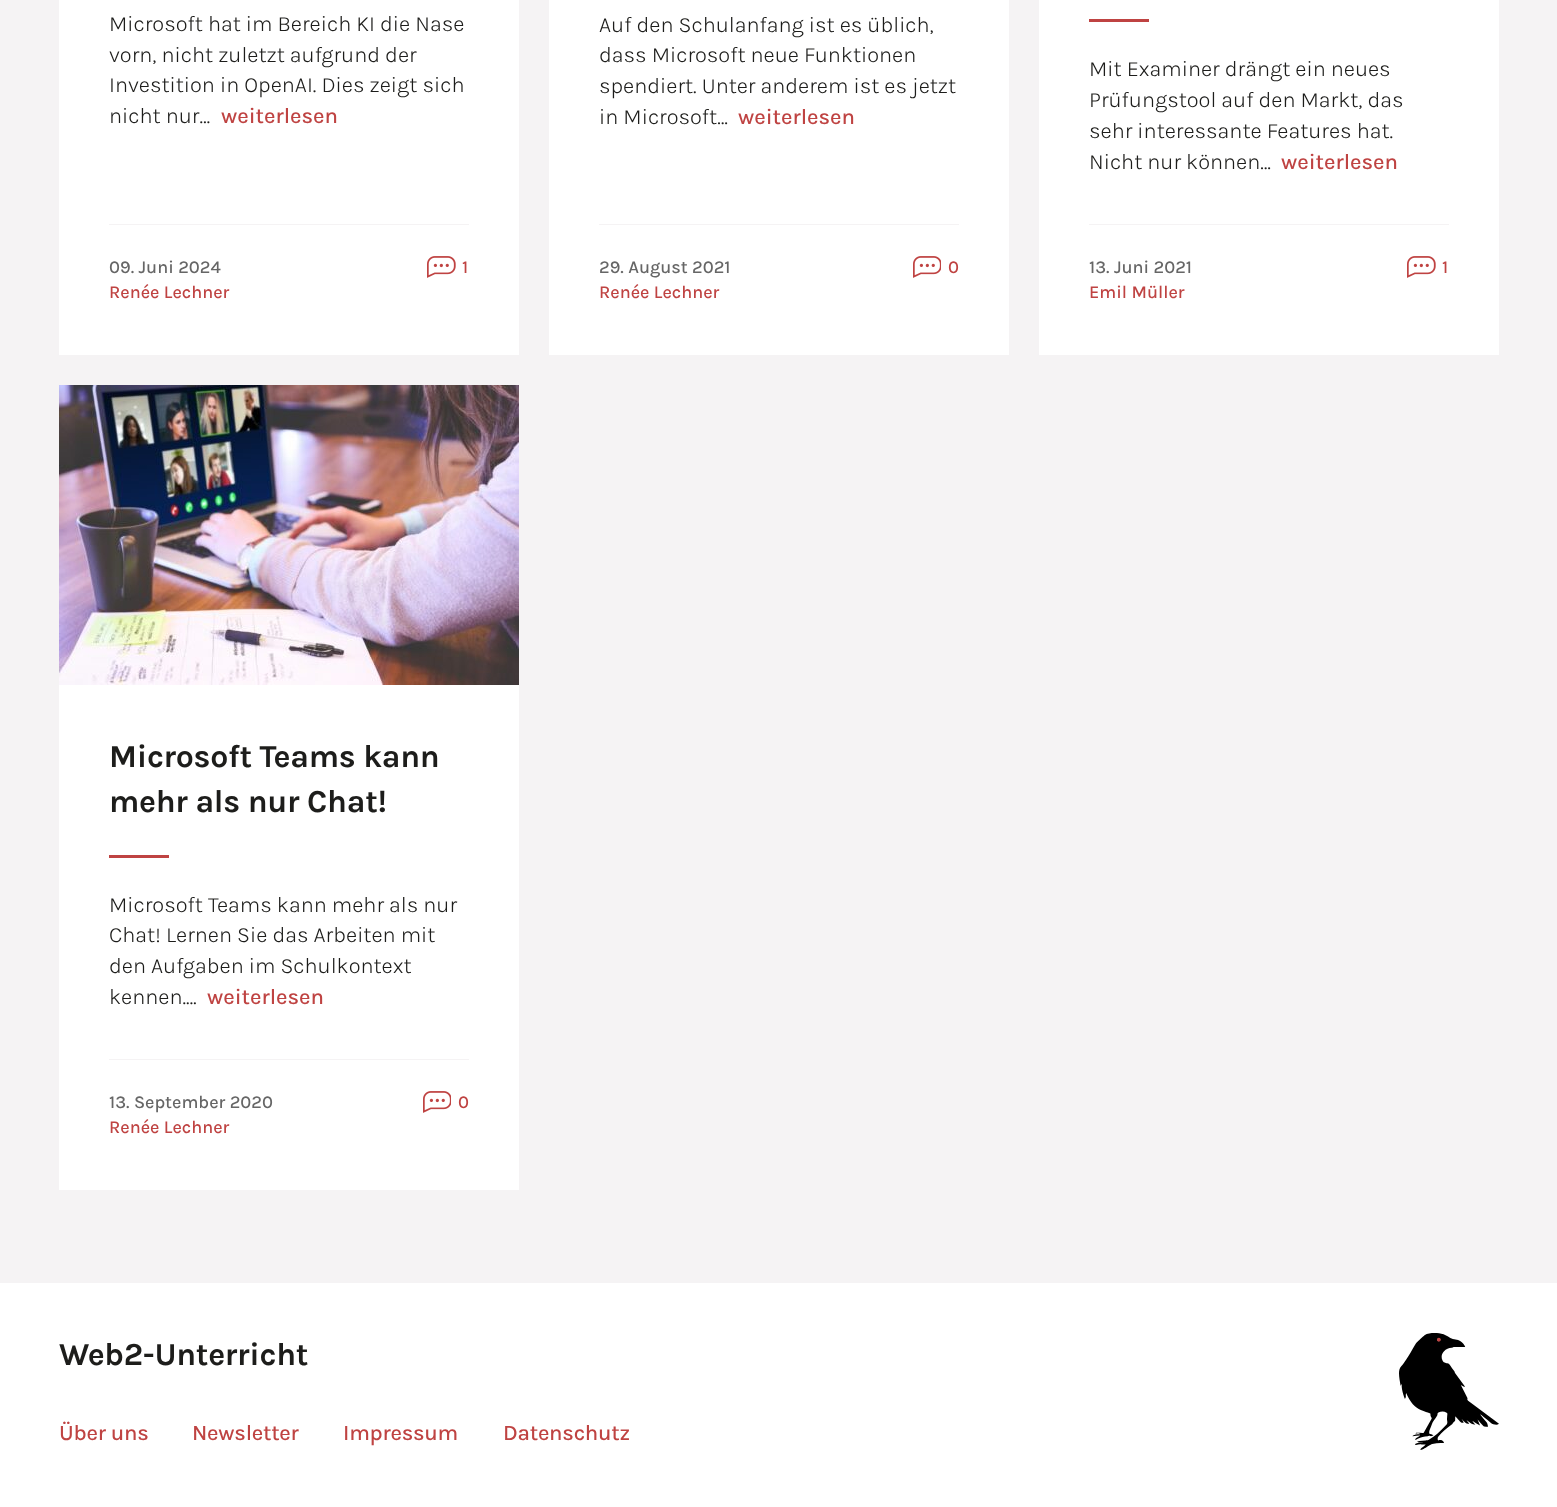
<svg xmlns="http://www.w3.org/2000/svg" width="1557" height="1507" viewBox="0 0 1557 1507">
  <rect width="100%" height="100%" fill="rgb(255,255,255)"/>
  <rect x="0" y="0" width="1557" height="1283" fill="rgb(245,243,244)"/>
  <rect x="59" y="0" width="460" height="355" fill="rgb(255,255,255)"/>
  <g font-family="Karla" font-size="22" font-weight="300" fill="rgb(29,29,27)">
    <text>
      <tspan x="109" y="31">Microsoft hat im Bereich KI die Nase</tspan>
      <tspan x="109" y="62">vorn, nicht zuletzt aufgrund der</tspan>
      <tspan x="109" y="92">Investition in OpenAI. Dies zeigt sich</tspan>
      <tspan x="109" y="123">nicht nur…</tspan>
    </text>
  </g>
  <text x="221" y="123" font-family="Karla" font-size="22" font-weight="500" fill="rgb(191,67,66)">weiterlesen</text>
  <rect x="109" y="224" width="360" height="1" fill="rgb(245,243,244)"/>
  <text x="109" y="273" font-family="Karla" font-size="18" font-weight="500" fill="rgb(102,102,102)">09. Juni 2024</text>
  <text x="109" y="298" font-family="Karla" font-size="18" font-weight="500" fill="rgb(191,67,66)">Renée Lechner</text>
  <image x="427" y="256" width="29" height="22" href="pic1.png"/>
  <text x="462" y="273" font-family="Karla" font-size="18" font-weight="500" fill="rgb(191,67,66)">1</text>
  <rect x="549" y="0" width="460" height="355" fill="rgb(255,255,255)"/>
  <g font-family="Karla" font-size="22" font-weight="300" fill="rgb(29,29,27)">
    <text>
      <tspan x="599" y="32">Auf den Schulanfang ist es üblich,</tspan>
      <tspan x="599" y="62">dass Microsoft neue Funktionen</tspan>
      <tspan x="599" y="93">spendiert. Unter anderem ist es jetzt</tspan>
      <tspan x="599" y="124">in Microsoft…</tspan>
    </text>
  </g>
  <text x="738" y="124" font-family="Karla" font-size="22" font-weight="500" fill="rgb(191,67,66)">weiterlesen</text>
  <rect x="599" y="224" width="360" height="1" fill="rgb(245,243,244)"/>
  <text x="599" y="273" font-family="Karla" font-size="18" font-weight="500" fill="rgb(102,102,102)">29. August 2021</text>
  <text x="599" y="298" font-family="Karla" font-size="18" font-weight="500" fill="rgb(191,67,66)">Renée Lechner</text>
  <image x="913" y="256" width="28" height="22" href="pic2.png"/>
  <text x="948" y="273" font-family="Karla" font-size="18" font-weight="500" fill="rgb(191,67,66)">0</text>
  <rect x="1039" y="0" width="460" height="355" fill="rgb(255,255,255)"/>
  <rect x="1089" y="19" width="60" height="3" fill="rgb(191,67,66)"/>
  <g font-family="Karla" font-size="22" font-weight="300" fill="rgb(29,29,27)">
    <text>
      <tspan x="1089" y="76">Mit Examiner drängt ein neues</tspan>
      <tspan x="1089" y="107">Prüfungstool auf den Markt, das</tspan>
      <tspan x="1089" y="138">sehr interessante Features hat.</tspan>
      <tspan x="1089" y="169">Nicht nur können…</tspan>
    </text>
  </g>
  <text x="1281" y="169" font-family="Karla" font-size="22" font-weight="500" fill="rgb(191,67,66)">weiterlesen</text>
  <rect x="1089" y="224" width="360" height="1" fill="rgb(245,243,244)"/>
  <text x="1089" y="273" font-family="Karla" font-size="18" font-weight="500" fill="rgb(102,102,102)">13. Juni 2021</text>
  <text x="1089" y="298" font-family="Karla" font-size="18" font-weight="500" fill="rgb(191,67,66)">Emil Müller</text>
  <image x="1407" y="256" width="29" height="22" href="pic1.png"/>
  <text x="1442" y="273" font-family="Karla" font-size="18" font-weight="500" fill="rgb(191,67,66)">1</text>
  <rect x="59" y="685" width="460" height="505" fill="rgb(255,255,255)"/>
  <image x="59" y="385" width="460" height="300" href="pic3.png"/>
  <g font-family="Karla" font-size="32" font-weight="bold" letter-spacing="-0.3" fill="rgb(29,29,27)">
    <text>
      <tspan x="109" y="767">Microsoft Teams kann</tspan>
      <tspan x="109" y="812">mehr als nur Chat!</tspan>
    </text>
  </g>
  <rect x="109" y="855" width="60" height="3" fill="rgb(191,67,66)"/>
  <g font-family="Karla" font-size="22" font-weight="300" fill="rgb(29,29,27)">
    <text>
      <tspan x="109" y="912">Microsoft Teams kann mehr als nur</tspan>
      <tspan x="109" y="942">Chat! Lernen Sie das Arbeiten mit</tspan>
      <tspan x="109" y="973">den Aufgaben im Schulkontext</tspan>
      <tspan x="109" y="1004">kennen.…</tspan>
    </text>
  </g>
  <text x="207" y="1004" font-family="Karla" font-size="22" font-weight="500" fill="rgb(191,67,66)">weiterlesen</text>
  <rect x="109" y="1059" width="360" height="1" fill="rgb(245,243,244)"/>
  <text x="109" y="1108" font-family="Karla" font-size="18" font-weight="500" fill="rgb(102,102,102)">13. September 2020</text>
  <text x="109" y="1133" font-family="Karla" font-size="18" font-weight="500" fill="rgb(191,67,66)">Renée Lechner</text>
  <image x="423" y="1091" width="28" height="22" href="pic2.png"/>
  <text x="458" y="1108" font-family="Karla" font-size="18" font-weight="500" fill="rgb(191,67,66)">0</text>
  <text x="59" y="1365" font-family="Karla" font-size="32" font-weight="bold" letter-spacing="-0.3" fill="rgb(29,29,27)">Web2-Unterricht</text>
  <g font-family="Karla" font-size="22" font-weight="500" letter-spacing="-0.25" fill="rgb(191,67,66)">
    <text x="59" y="1440">Über uns</text>
    <text x="192" y="1440">Newsletter</text>
    <text x="343" y="1440">Impressum</text>
    <text x="503" y="1440">Datenschutz</text>
  </g>
  <image x="1399" y="1333" width="100" height="117" href="pic4.png"/>
</svg>
